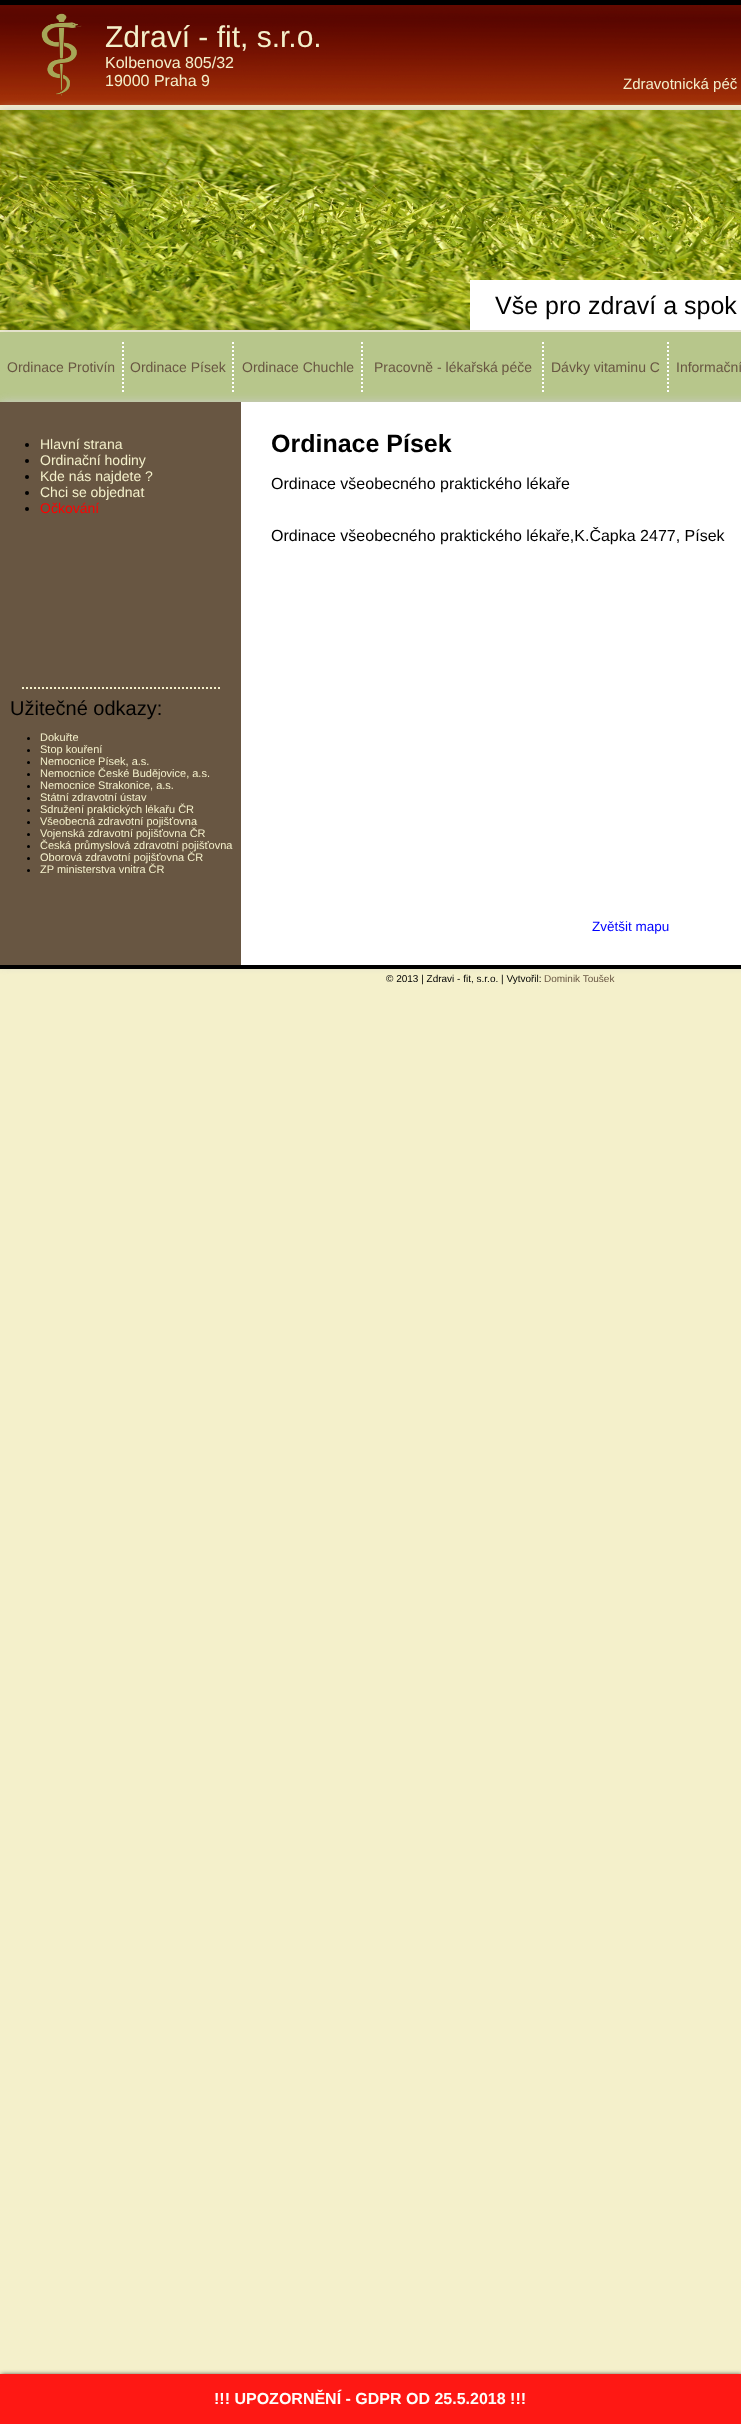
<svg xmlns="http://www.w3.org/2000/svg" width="741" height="2424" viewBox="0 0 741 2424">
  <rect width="100%" height="100%" fill="rgb(244,240,203)"/>
  <rect x="0" y="0" width="741" height="5" fill="rgb(0,0,0)"/>
  <image x="0" y="5" width="741" height="100" href="pic1.png"/>
  <image x="41" y="13" width="41" height="83" href="pic2.png"/>
  <text x="105" y="47" font-family="Liberation Sans" font-size="30" fill="rgb(244,240,203)">Zdraví - fit, s.r.o.</text>
  <g font-family="Liberation Sans" font-size="16" fill="rgb(244,240,203)">
    <text>
      <tspan x="105" y="68">Kolbenova 805/32</tspan>
      <tspan x="105" y="86">19000 Praha 9</tspan>
    </text>
  </g>
  <text x="623" y="89" font-family="Liberation Sans" font-size="15" fill="rgb(244,240,203)">Zdravotnická péč</text>
  <rect x="0" y="110" width="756" height="220" fill="rgb(204,204,204)" filter="blur(5px)"/>
  <image x="0" y="110" width="741" height="220" href="pic3.png"/>
  <rect x="470" y="280" width="271" height="50" fill="rgb(255,255,255)"/>
  <text x="495" y="314" font-family="Liberation Sans" font-size="25" fill="rgb(0,0,0)">Vše pro zdraví a spok</text>
  <rect x="0" y="332" width="741" height="70" fill="rgb(183,198,139)"/>
  <text x="7" y="372" font-family="Liberation Sans" font-size="14" fill="rgb(104,86,66)">Ordinace Protivín</text>
  <path d="M123 342V392" fill="none" stroke="rgb(255,255,255)" stroke-width="2" stroke-dasharray="2 2"/>
  <text x="130" y="372" font-family="Liberation Sans" font-size="14" fill="rgb(104,86,66)">Ordinace Písek</text>
  <path d="M233 342V392" fill="none" stroke="rgb(255,255,255)" stroke-width="2" stroke-dasharray="2 2"/>
  <text x="242" y="372" font-family="Liberation Sans" font-size="14" fill="rgb(104,86,66)">Ordinace Chuchle</text>
  <path d="M362 342V392" fill="none" stroke="rgb(255,255,255)" stroke-width="2" stroke-dasharray="2 2"/>
  <text x="374" y="372" font-family="Liberation Sans" font-size="14" fill="rgb(104,86,66)">Pracovně - lékařská péče</text>
  <path d="M543 342V392" fill="none" stroke="rgb(255,255,255)" stroke-width="2" stroke-dasharray="2 2"/>
  <text x="551" y="372" font-family="Liberation Sans" font-size="14" fill="rgb(104,86,66)">Dávky vitaminu C</text>
  <path d="M668 342V392" fill="none" stroke="rgb(255,255,255)" stroke-width="2" stroke-dasharray="2 2"/>
  <text x="676" y="372" font-family="Liberation Sans" font-size="14" fill="rgb(104,86,66)">Informační</text>
  <rect x="0" y="402" width="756" height="563" fill="rgb(204,204,204)" filter="blur(5px)"/>
  <rect x="0" y="402" width="241" height="563" fill="rgb(104,86,66)"/>
  <circle cx="27" cy="445" r="2" fill="rgb(0,0,0)"/>
  <text x="40" y="449" font-family="Liberation Sans" font-size="14" fill="rgb(244,240,203)">Hlavní strana</text>
  <circle cx="27" cy="461" r="2" fill="rgb(0,0,0)"/>
  <text x="40" y="465" font-family="Liberation Sans" font-size="14" fill="rgb(244,240,203)">Ordinační hodiny</text>
  <circle cx="27" cy="477" r="2" fill="rgb(0,0,0)"/>
  <text x="40" y="481" font-family="Liberation Sans" font-size="14" fill="rgb(244,240,203)">Kde nás najdete ?</text>
  <circle cx="27" cy="493" r="2" fill="rgb(0,0,0)"/>
  <text x="40" y="497" font-family="Liberation Sans" font-size="14" fill="rgb(244,240,203)">Chci se objednat</text>
  <circle cx="27" cy="509" r="2" fill="rgb(0,0,0)"/>
  <text x="40" y="513" font-family="Liberation Sans" font-size="14" fill="rgb(255,0,0)">Očkování</text>
  <path d="M22 688H222" fill="none" stroke="rgb(244,240,203)" stroke-width="2" stroke-dasharray="2 2"/>
  <text x="10" y="715" font-family="Liberation Sans" font-size="20" fill="rgb(0,0,0)">Užitečné odkazy:</text>
  <circle cx="28.5" cy="738.5" r="1.5" fill="rgb(0,0,0)"/>
  <text x="40" y="741" font-family="Liberation Sans" font-size="11" fill="rgb(244,240,203)">Dokuřte</text>
  <circle cx="28.5" cy="750.5" r="1.5" fill="rgb(0,0,0)"/>
  <text x="40" y="753" font-family="Liberation Sans" font-size="11" fill="rgb(244,240,203)">Stop kouření</text>
  <circle cx="28.5" cy="762.5" r="1.5" fill="rgb(0,0,0)"/>
  <text x="40" y="765" font-family="Liberation Sans" font-size="11" fill="rgb(244,240,203)">Nemocnice Písek, a.s.</text>
  <circle cx="28.5" cy="774.5" r="1.5" fill="rgb(0,0,0)"/>
  <text x="40" y="777" font-family="Liberation Sans" font-size="11" fill="rgb(244,240,203)">Nemocnice České Budějovice, a.s.</text>
  <circle cx="28.5" cy="786.5" r="1.5" fill="rgb(0,0,0)"/>
  <text x="40" y="789" font-family="Liberation Sans" font-size="11" fill="rgb(244,240,203)">Nemocnice Strakonice, a.s.</text>
  <circle cx="28.5" cy="798.5" r="1.5" fill="rgb(0,0,0)"/>
  <text x="40" y="801" font-family="Liberation Sans" font-size="11" fill="rgb(244,240,203)">Státní zdravotní ústav</text>
  <circle cx="28.5" cy="810.5" r="1.5" fill="rgb(0,0,0)"/>
  <text x="40" y="813" font-family="Liberation Sans" font-size="11" fill="rgb(244,240,203)">Sdružení praktických lékařu ČR</text>
  <circle cx="28.5" cy="822.5" r="1.5" fill="rgb(0,0,0)"/>
  <text x="40" y="825" font-family="Liberation Sans" font-size="11" fill="rgb(244,240,203)">Všeobecná zdravotní pojišťovna</text>
  <circle cx="28.5" cy="834.5" r="1.5" fill="rgb(0,0,0)"/>
  <text x="40" y="837" font-family="Liberation Sans" font-size="11" fill="rgb(244,240,203)">Vojenská zdravotní pojišťovna ČR</text>
  <circle cx="28.5" cy="846.5" r="1.5" fill="rgb(0,0,0)"/>
  <text x="40" y="849" font-family="Liberation Sans" font-size="11" fill="rgb(244,240,203)">Česká průmyslová zdravotní pojišťovna</text>
  <circle cx="28.5" cy="858.5" r="1.5" fill="rgb(0,0,0)"/>
  <text x="40" y="861" font-family="Liberation Sans" font-size="11" fill="rgb(244,240,203)">Oborová zdravotní pojišťovna ČR</text>
  <circle cx="28.5" cy="870.5" r="1.5" fill="rgb(0,0,0)"/>
  <text x="40" y="873" font-family="Liberation Sans" font-size="11" fill="rgb(244,240,203)">ZP ministerstva vnitra ČR</text>
  <rect x="241" y="402" width="500" height="563" fill="rgb(255,255,255)"/>
  <text x="271" y="452" font-family="Liberation Sans" font-size="25" font-weight="bold" fill="rgb(0,0,0)">Ordinace Písek</text>
  <g font-family="Liberation Sans" font-size="16" fill="rgb(0,0,0)">
    <text x="271" y="489">Ordinace všeobecného praktického lékaře</text>
    <text x="271" y="541">Ordinace všeobecného praktického lékaře,K.Čapka 2477, Písek</text>
  </g>
  <text x="592" y="931" font-family="Liberation Sans" font-size="13.5" fill="rgb(0,0,255)">Zvětšit mapu</text>
  <rect x="0" y="965" width="741" height="4" fill="rgb(0,0,0)"/>
  <text x="386" y="982" font-family="Liberation Sans" font-size="10" fill="rgb(0,0,0)">© 2013 | Zdravi - fit, s.r.o. | Vytvořil:</text>
  <text x="544" y="982" font-family="Liberation Sans" font-size="10" fill="rgb(104,86,66)">Dominik Toušek</text>
  <rect x="1" y="2375" width="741" height="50" fill="rgb(24,24,20)" filter="blur(2.5px)"/>
  <rect x="0" y="2374" width="741" height="50" fill="rgb(254,24,20)"/>
  <text x="214" y="2404" font-family="Liberation Sans" font-size="16" font-weight="bold" fill="rgb(254,254,250)">!!! UPOZORNĚNÍ - GDPR OD 25.5.2018 !!!</text>
</svg>
